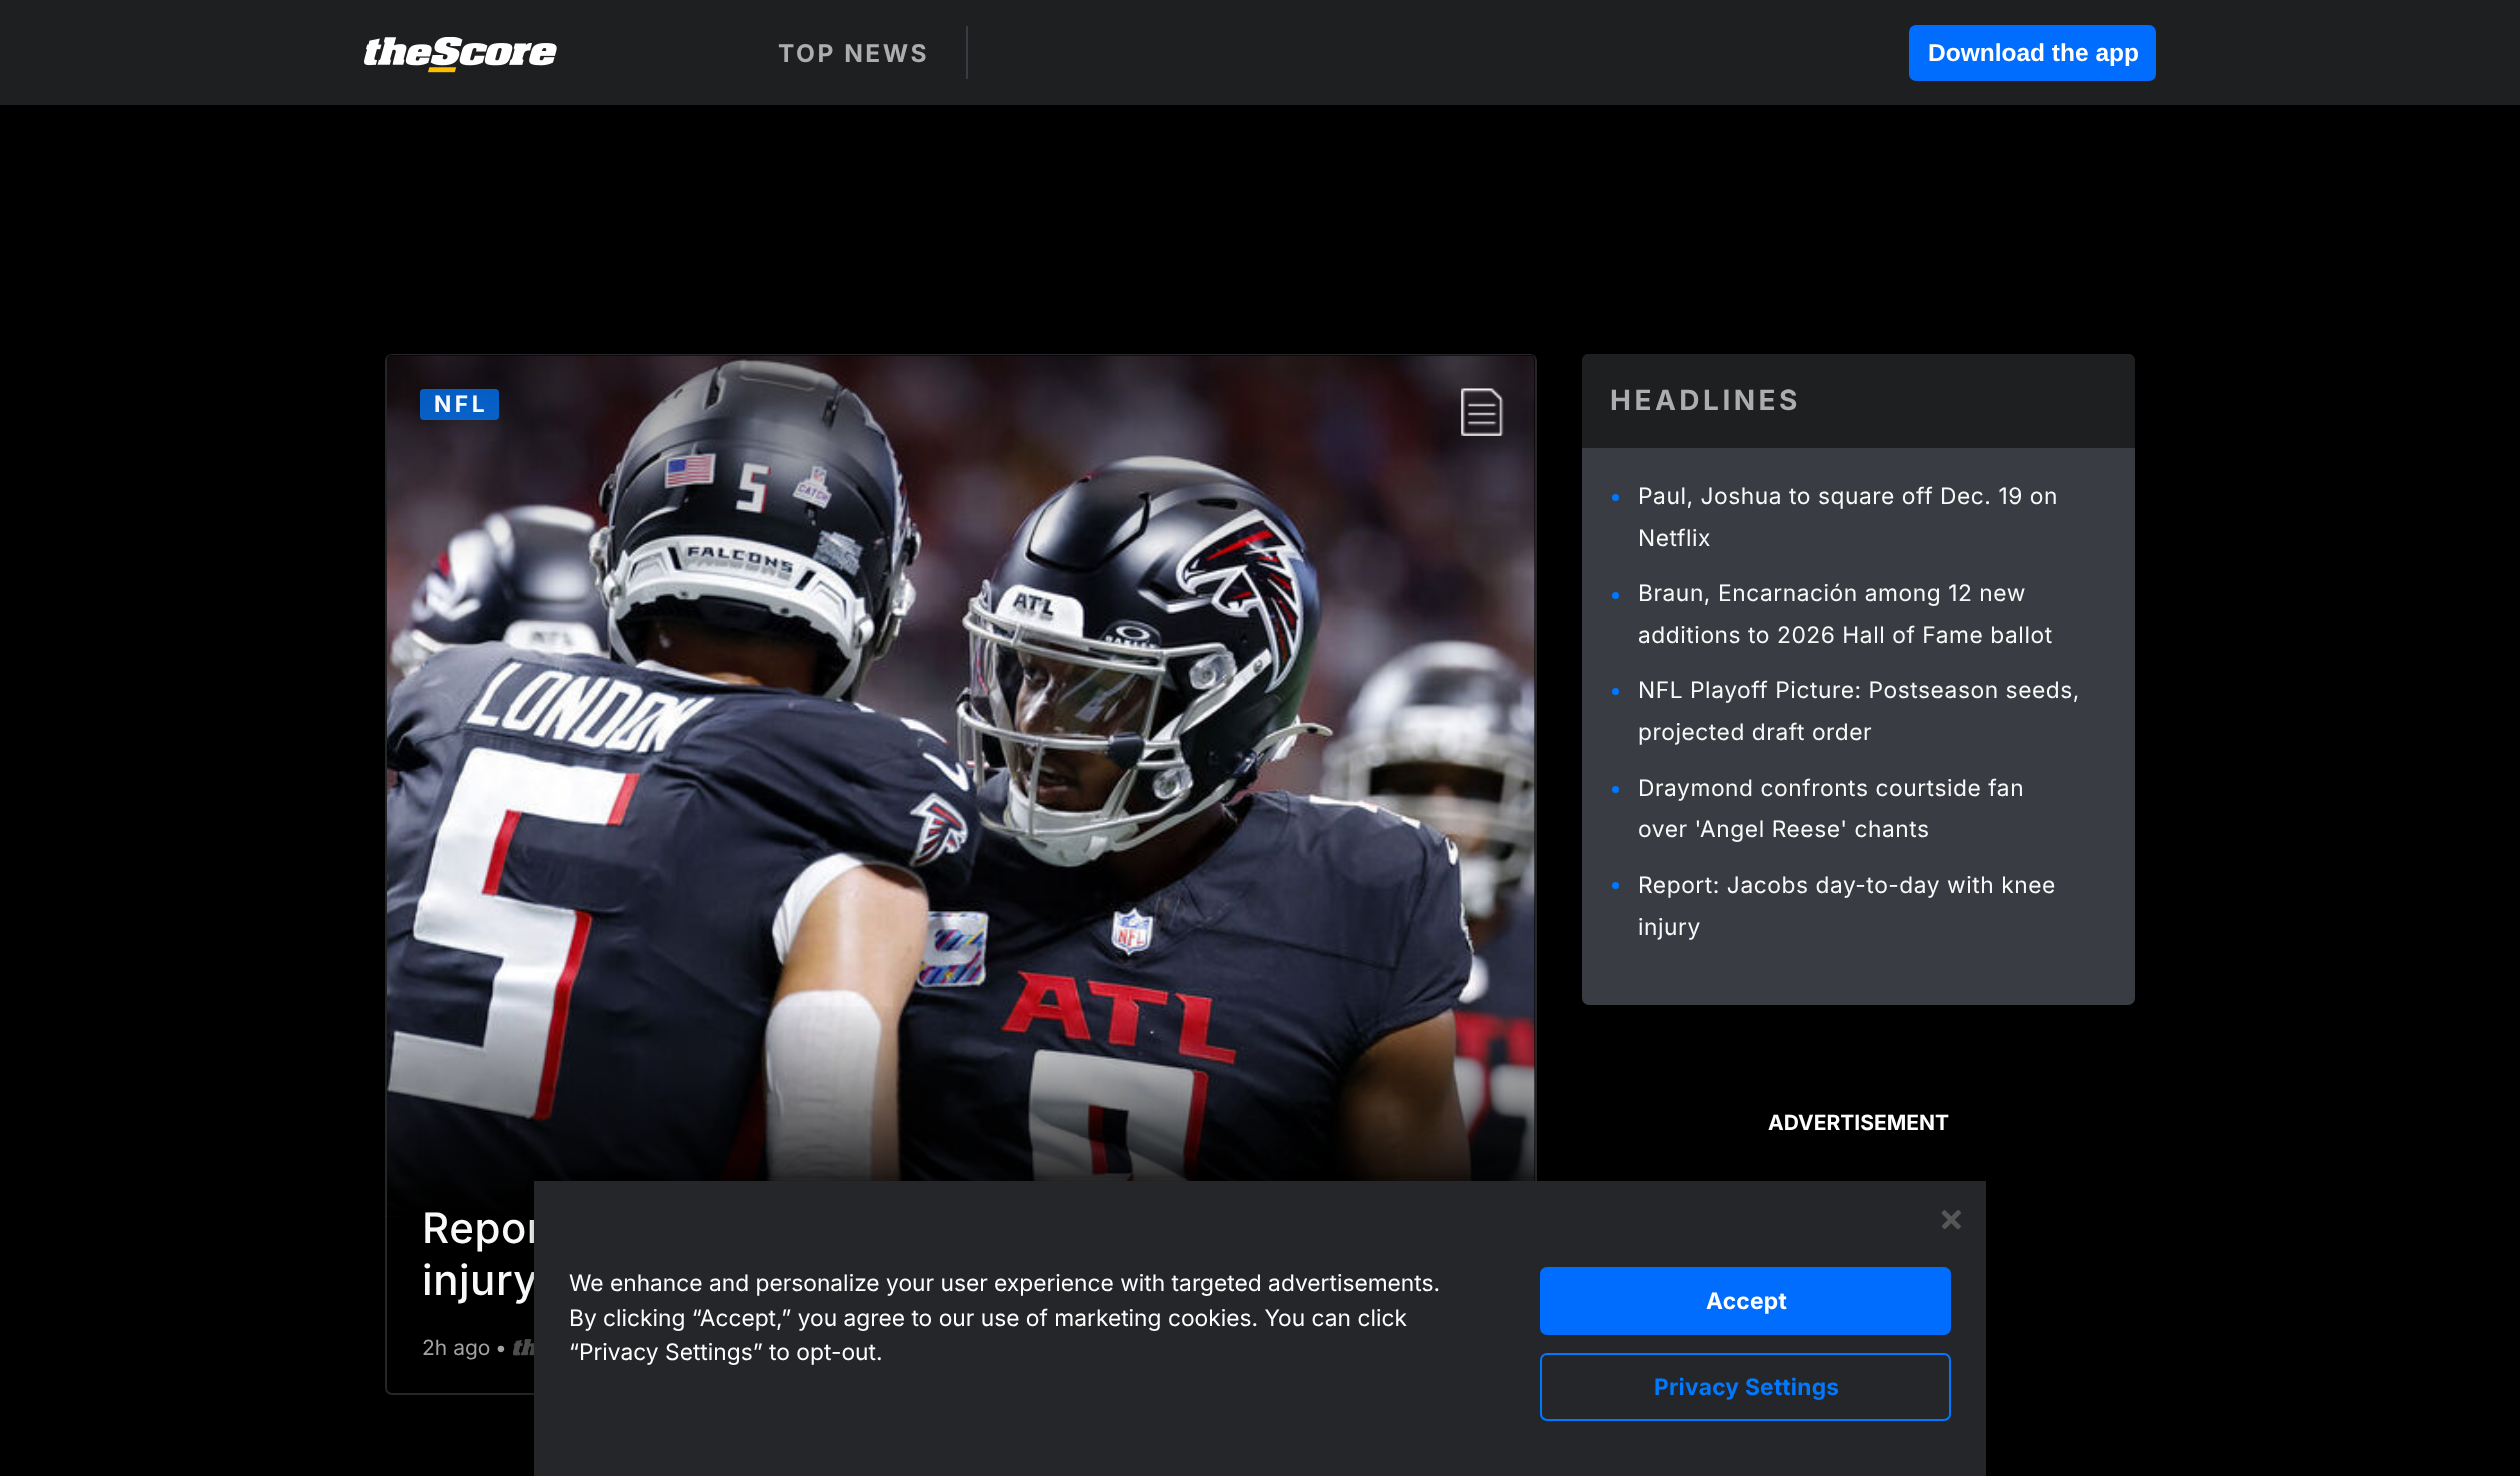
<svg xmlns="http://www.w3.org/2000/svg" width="2520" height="1476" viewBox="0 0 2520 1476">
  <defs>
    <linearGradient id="g1" gradientUnits="userSpaceOnUse" x1="961" y1="355" x2="961" y2="571"><stop offset="0" stop-color="rgb(0,0,0)" stop-opacity="0.45"/><stop offset="1" stop-color="rgb(0,0,0)" stop-opacity="0"/></linearGradient>
    <linearGradient id="g2" gradientUnits="userSpaceOnUse" x1="961" y1="1001" x2="961" y2="1216"><stop offset="0" stop-color="rgb(0,0,0)" stop-opacity="0"/><stop offset="1" stop-color="rgb(0,0,0)"/></linearGradient>
    <clipPath id="clip1"><path d="M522 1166H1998V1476H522ZM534 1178H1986V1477H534Z" clip-rule="evenodd"/></clipPath>
    <clipPath id="clip2"><rect x="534" y="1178" width="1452" height="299"/></clipPath>
  </defs>
  <rect width="100%" height="100%" fill="rgb(0,0,0)"/>
  <rect x="0" y="0" width="2520" height="105" fill="rgb(30,31,33)"/>
  <image x="364" y="37" width="193" height="36" href="pic1.png"/>
  <rect x="966" y="26" width="2" height="53" fill="rgb(57,60,66)"/>
  <text x="778" y="62" font-family="Inter" font-size="24.5" font-weight="bold" letter-spacing="2.5" fill="rgb(172,173,173)">TOP NEWS</text>
  <rect x="1909" y="25" width="247" height="56" rx="7" fill="rgb(0,109,255)"/>
  <text x="1928" y="61" font-family="Liberation Sans" font-size="24.5" font-weight="bold" fill="rgb(255,255,255)">Download the app</text>
  <rect x="386" y="355" width="1150" height="1039" rx="6" fill="none" stroke="rgb(36,38,40)" stroke-width="2"/>
  <path d="M392 355H1530C1533 355 1535 357 1535 360V1216H387V360C387 357 389 355 392 355Z" fill="rgb(0,0,0)"/>
  <image x="387" y="355" width="1148" height="862" href="pic2.png"/>
  <path d="M392 355H1530C1533 355 1535 357 1535 360V571H387V360C387 357 389 355 392 355Z" fill="url(#g1)"/>
  <rect x="420" y="389" width="79" height="31" rx="4" fill="rgba(0,120,253,0.75)"/>
  <text x="434" y="412" font-family="Inter" font-size="22.75" font-weight="bold" letter-spacing="3.5" fill="rgb(249,249,249)">NFL</text>
  <rect x="387" y="1006" width="1148" height="210" fill="url(#g2)"/>
  <image x="1461" y="388" width="43" height="48" href="pic3.png"/>
  <g font-family="Inter" font-size="42" font-weight="500" letter-spacing="0.55" fill="rgb(249,249,249)">
    <text>
      <tspan x="422" y="1243">Repor</tspan>
      <tspan x="422" y="1295">injury</tspan>
    </text>
  </g>
  <g font-family="Inter" font-size="21" fill="rgb(162,162,162)">
    <text x="422" y="1355">2h ago</text>
    <text x="495" y="1355">•</text>
  </g>
  <image x="513" y="1339" width="21" height="17" href="pic4.png"/>
  <rect x="1582" y="354" width="553" height="651" rx="7" fill="rgb(57,60,66)"/>
  <path d="M1589 354H2128C2132 354 2135 357 2135 361V448H1582V361C1582 357 1585 354 1589 354Z" fill="rgb(30,31,33)"/>
  <text x="1610" y="410" font-family="Inter" font-size="28" font-weight="bold" letter-spacing="3.5" fill="rgb(172,173,173)">HEADLINES</text>
  <circle cx="1615.5" cy="497.5" r="3.5" fill="rgb(0,120,253)"/>
  <g font-family="Inter" font-size="22.75" letter-spacing="0.55" fill="rgb(249,249,249)">
    <text>
      <tspan x="1638" y="504">Paul, Joshua to square off Dec. 19 on</tspan>
      <tspan x="1638" y="546">Netflix</tspan>
    </text>
  </g>
  <circle cx="1615.5" cy="595.5" r="3.5" fill="rgb(0,120,253)"/>
  <g font-family="Inter" font-size="22.75" letter-spacing="0.55" fill="rgb(249,249,249)">
    <text>
      <tspan x="1638" y="601">Braun, Encarnación among 12 new</tspan>
      <tspan x="1638" y="643">additions to 2026 Hall of Fame ballot</tspan>
    </text>
  </g>
  <circle cx="1615.5" cy="691.5" r="3.5" fill="rgb(0,120,253)"/>
  <g font-family="Inter" font-size="22.75" letter-spacing="0.55" fill="rgb(249,249,249)">
    <text>
      <tspan x="1638" y="698">NFL Playoff Picture: Postseason seeds,</tspan>
      <tspan x="1638" y="740">projected draft order</tspan>
    </text>
  </g>
  <circle cx="1615.5" cy="789.5" r="3.5" fill="rgb(0,120,253)"/>
  <g font-family="Inter" font-size="22.75" letter-spacing="0.55" fill="rgb(249,249,249)">
    <text>
      <tspan x="1638" y="796">Draymond confronts courtside fan</tspan>
      <tspan x="1638" y="837">over 'Angel Reese' chants</tspan>
    </text>
  </g>
  <circle cx="1615.5" cy="885.5" r="3.5" fill="rgb(0,120,253)"/>
  <g font-family="Inter" font-size="22.75" letter-spacing="0.55" fill="rgb(249,249,249)">
    <text>
      <tspan x="1638" y="893">Report: Jacobs day-to-day with knee</tspan>
      <tspan x="1638" y="935">injury</tspan>
    </text>
  </g>
  <text x="1768" y="1130" font-family="Inter" font-size="21" font-weight="bold" fill="rgb(255,255,255)">ADVERTISEMENT</text>
  <g clip-path="url(#clip1)">
    <rect x="534" y="1178" width="1452" height="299" fill="rgba(0,0,0,0.35)" filter="blur(3.5px)"/>
  </g>
  <g clip-path="url(#clip2)">
    <rect x="534" y="1181" width="1452" height="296" fill="rgba(0,0,0,0.2)" filter="blur(3.5px)"/>
  </g>
  <rect x="534" y="1181" width="1452" height="295" fill="rgb(36,38,41)"/>
  <image x="1941" y="1210" width="20" height="20" href="pic5.png"/>
  <g font-family="Inter" font-size="22.75" fill="rgb(255,255,255)">
    <text>
      <tspan x="569" y="1291">We enhance and personalize your user experience with targeted advertisements.</tspan>
      <tspan x="569" y="1326">By clicking “Accept,” you agree to our use of marketing cookies. You can click</tspan>
      <tspan x="569" y="1360">“Privacy Settings” to opt-out.</tspan>
    </text>
  </g>
  <rect x="1541" y="1268" width="409" height="66" rx="6" fill="rgb(0,109,255)" stroke="rgb(0,109,255)" stroke-width="2"/>
  <text x="1706" y="1309" font-family="Inter" font-size="22.75" font-weight="bold" letter-spacing="0.25" fill="rgb(255,255,255)">Accept</text>
  <rect x="1541" y="1354" width="409" height="66" rx="6" fill="none" stroke="rgb(0,121,255)" stroke-width="2"/>
  <text x="1654" y="1395" font-family="Inter" font-size="22.75" font-weight="bold" letter-spacing="0.25" fill="rgb(0,121,255)">Privacy Settings</text>
</svg>
